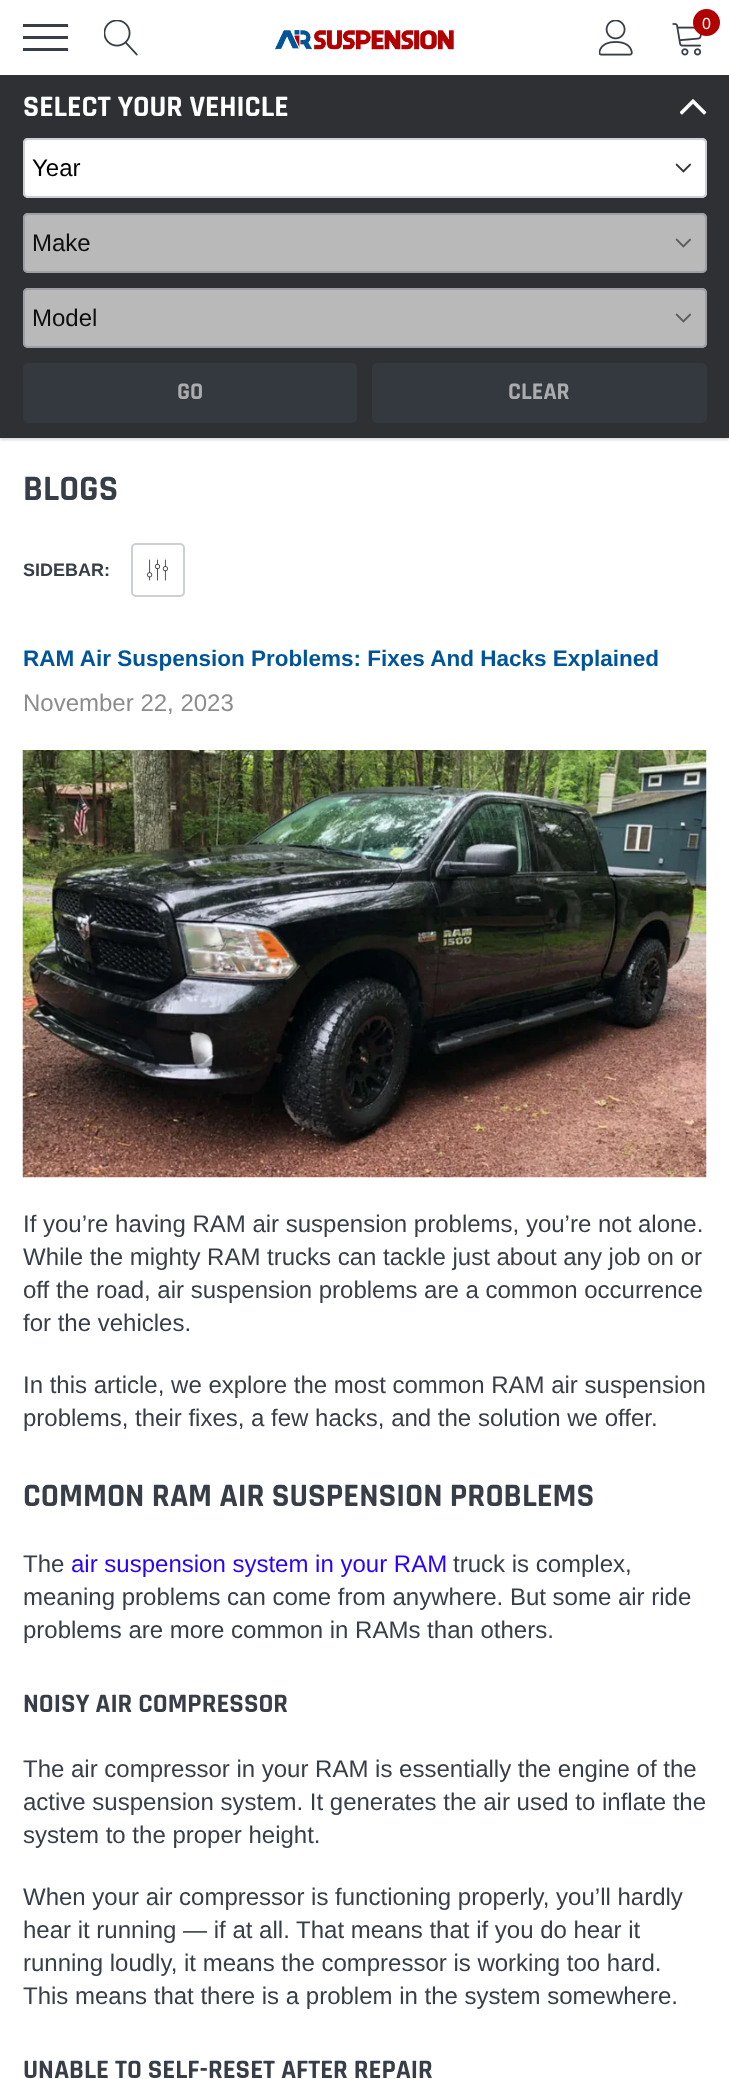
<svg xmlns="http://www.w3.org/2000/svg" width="729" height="2079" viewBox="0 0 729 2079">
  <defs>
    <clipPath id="clip1"><rect x="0" y="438" width="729" height="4"/></clipPath>
  </defs>
  <rect width="100%" height="100%" fill="rgb(255,255,255)"/>
  <g clip-path="url(#clip1)">
    <rect x="0" y="2" width="729" height="438" fill="rgba(0,0,0,0.15)" filter="blur(1.5px)"/>
  </g>
  <rect x="23" y="36" width="45" height="3" fill="rgb(56,62,71)"/>
  <rect x="23" y="24" width="45" height="3" fill="rgb(56,62,71)"/>
  <rect x="23" y="48" width="45" height="3" fill="rgb(56,62,71)"/>
  <image x="104" y="20" width="34" height="36" href="pic1.png"/>
  <image x="274" y="30" width="180" height="20" href="pic2.png"/>
  <image x="599" y="20" width="34" height="36" href="pic3.png"/>
  <image x="672" y="23" width="30" height="33" href="pic4.png"/>
  <circle cx="706.5" cy="22.5" r="13.5" fill="rgb(178,0,0)"/>
  <text x="702" y="29" font-family="Arimo" font-size="16" fill="rgb(255,255,255)">0</text>
  <rect x="0" y="75" width="729" height="363" fill="rgb(46,48,51)"/>
  <text x="23" y="116" font-family="Rajdhani" font-size="30" font-weight="bold" fill="rgb(255,255,255)">SELECT YOUR VEHICLE</text>
  <image x="680" y="99" width="27" height="16" href="pic5.png"/>
  <rect x="23" y="138" width="684" height="60" rx="5" fill="rgb(255,255,255)"/>
  <image x="675" y="163" width="17" height="10" href="pic6.png"/>
  <rect x="24" y="139" width="682" height="58" rx="4" fill="none" stroke="rgb(204,207,214)" stroke-width="2"/>
  <text x="32" y="176" font-family="Arimo" font-size="24" fill="rgb(0,0,0)">Year</text>
  <rect x="23" y="213" width="684" height="60" rx="5" fill="rgb(185,185,186)"/>
  <image x="675" y="238" width="16" height="10" href="pic7.png"/>
  <rect x="24" y="214" width="682" height="58" rx="4" fill="none" stroke="rgb(157,159,165)" stroke-width="2"/>
  <text x="32" y="251" font-family="Arimo" font-size="24" fill="rgb(14,14,15)">Make</text>
  <rect x="23" y="288" width="684" height="60" rx="5" fill="rgb(185,185,186)"/>
  <image x="675" y="313" width="16" height="10" href="pic7.png"/>
  <rect x="24" y="289" width="682" height="58" rx="4" fill="none" stroke="rgb(157,159,165)" stroke-width="2"/>
  <text x="32" y="326" font-family="Arimo" font-size="24" fill="rgb(14,14,15)">Model</text>
  <rect x="24" y="364" width="332" height="58" rx="4" fill="rgb(52,56,63)" stroke="rgb(52,56,63)" stroke-width="2"/>
  <text x="177" y="399" font-family="Rajdhani" font-size="24" font-weight="bold" fill="rgb(171,172,173)">GO</text>
  <rect x="373" y="364" width="333" height="58" rx="4" fill="rgb(52,56,63)" stroke="rgb(52,56,63)" stroke-width="2"/>
  <text x="508" y="399" font-family="Rajdhani" font-size="24" font-weight="bold" fill="rgb(171,172,173)">CLEAR</text>
  <text x="23" y="500" font-family="Rajdhani" font-size="36" font-weight="bold" fill="rgb(56,62,71)">BLOGS</text>
  <text x="23" y="576" font-family="Arimo" font-size="18" font-weight="bold" fill="rgb(56,62,71)">SIDEBAR:</text>
  <rect x="132" y="544" width="52" height="52" rx="4" fill="none" stroke="rgb(204,207,214)" stroke-width="2"/>
  <image x="147" y="559" width="21" height="22" href="pic8.png"/>
  <text x="23" y="666" font-family="Arimo" font-size="22.5" font-weight="bold" fill="rgb(0,85,153)">RAM Air Suspension Problems: Fixes And Hacks Explained</text>
  <text x="23" y="711" font-family="Arimo" font-size="24" fill="rgb(140,140,140)">November 22, 2023</text>
  <image x="22" y="750" width="685" height="428" href="pic9.png"/>
  <g font-family="Arimo" font-size="24" fill="rgb(56,62,71)">
    <text>
      <tspan x="23" y="1232">If you’re having RAM air suspension problems, you’re not alone.</tspan>
      <tspan x="23" y="1265">While the mighty RAM trucks can tackle just about any job on or</tspan>
      <tspan x="23" y="1298">off the road, air suspension problems are a common occurrence</tspan>
      <tspan x="23" y="1331">for the vehicles.</tspan>
    </text>
    <text>
      <tspan x="23" y="1393">In this article, we explore the most common RAM air suspension</tspan>
      <tspan x="23" y="1426">problems, their fixes, a few hacks, and the solution we offer.</tspan>
    </text>
  </g>
  <text x="23" y="1506" font-family="Rajdhani" font-size="33" font-weight="bold" fill="rgb(56,62,71)">COMMON RAM AIR SUSPENSION PROBLEMS</text>
  <text x="23" y="1572" font-family="Arimo" font-size="24" fill="rgb(56,62,71)">The</text>
  <text x="71" y="1572" font-family="Arimo" font-size="24" fill="rgb(43,0,255)">air suspension system in your RAM</text>
  <g font-family="Arimo" font-size="24" fill="rgb(56,62,71)">
    <text x="453" y="1572">truck is complex,</text>
    <text>
      <tspan x="23" y="1605">meaning problems can come from anywhere. But some air ride</tspan>
      <tspan x="23" y="1638">problems are more common in RAMs than others.</tspan>
    </text>
  </g>
  <text x="23" y="1712" font-family="Rajdhani" font-size="27" font-weight="bold" fill="rgb(56,62,71)">NOISY AIR COMPRESSOR</text>
  <g font-family="Arimo" font-size="24" fill="rgb(56,62,71)">
    <text>
      <tspan x="23" y="1777">The air compressor in your RAM is essentially the engine of the</tspan>
      <tspan x="23" y="1810">active suspension system. It generates the air used to inflate the</tspan>
      <tspan x="23" y="1843">system to the proper height.</tspan>
    </text>
    <text>
      <tspan x="23" y="1905">When your air compressor is functioning properly, you’ll hardly</tspan>
      <tspan x="23" y="1938">hear it running — if at all. That means that if you do hear it</tspan>
      <tspan x="23" y="1971">running loudly, it means the compressor is working too hard.</tspan>
      <tspan x="23" y="2004">This means that there is a problem in the system somewhere.</tspan>
    </text>
  </g>
  <text x="23" y="2078" font-family="Rajdhani" font-size="27" font-weight="bold" fill="rgb(56,62,71)">UNABLE TO SELF-RESET AFTER REPAIR</text>
</svg>
